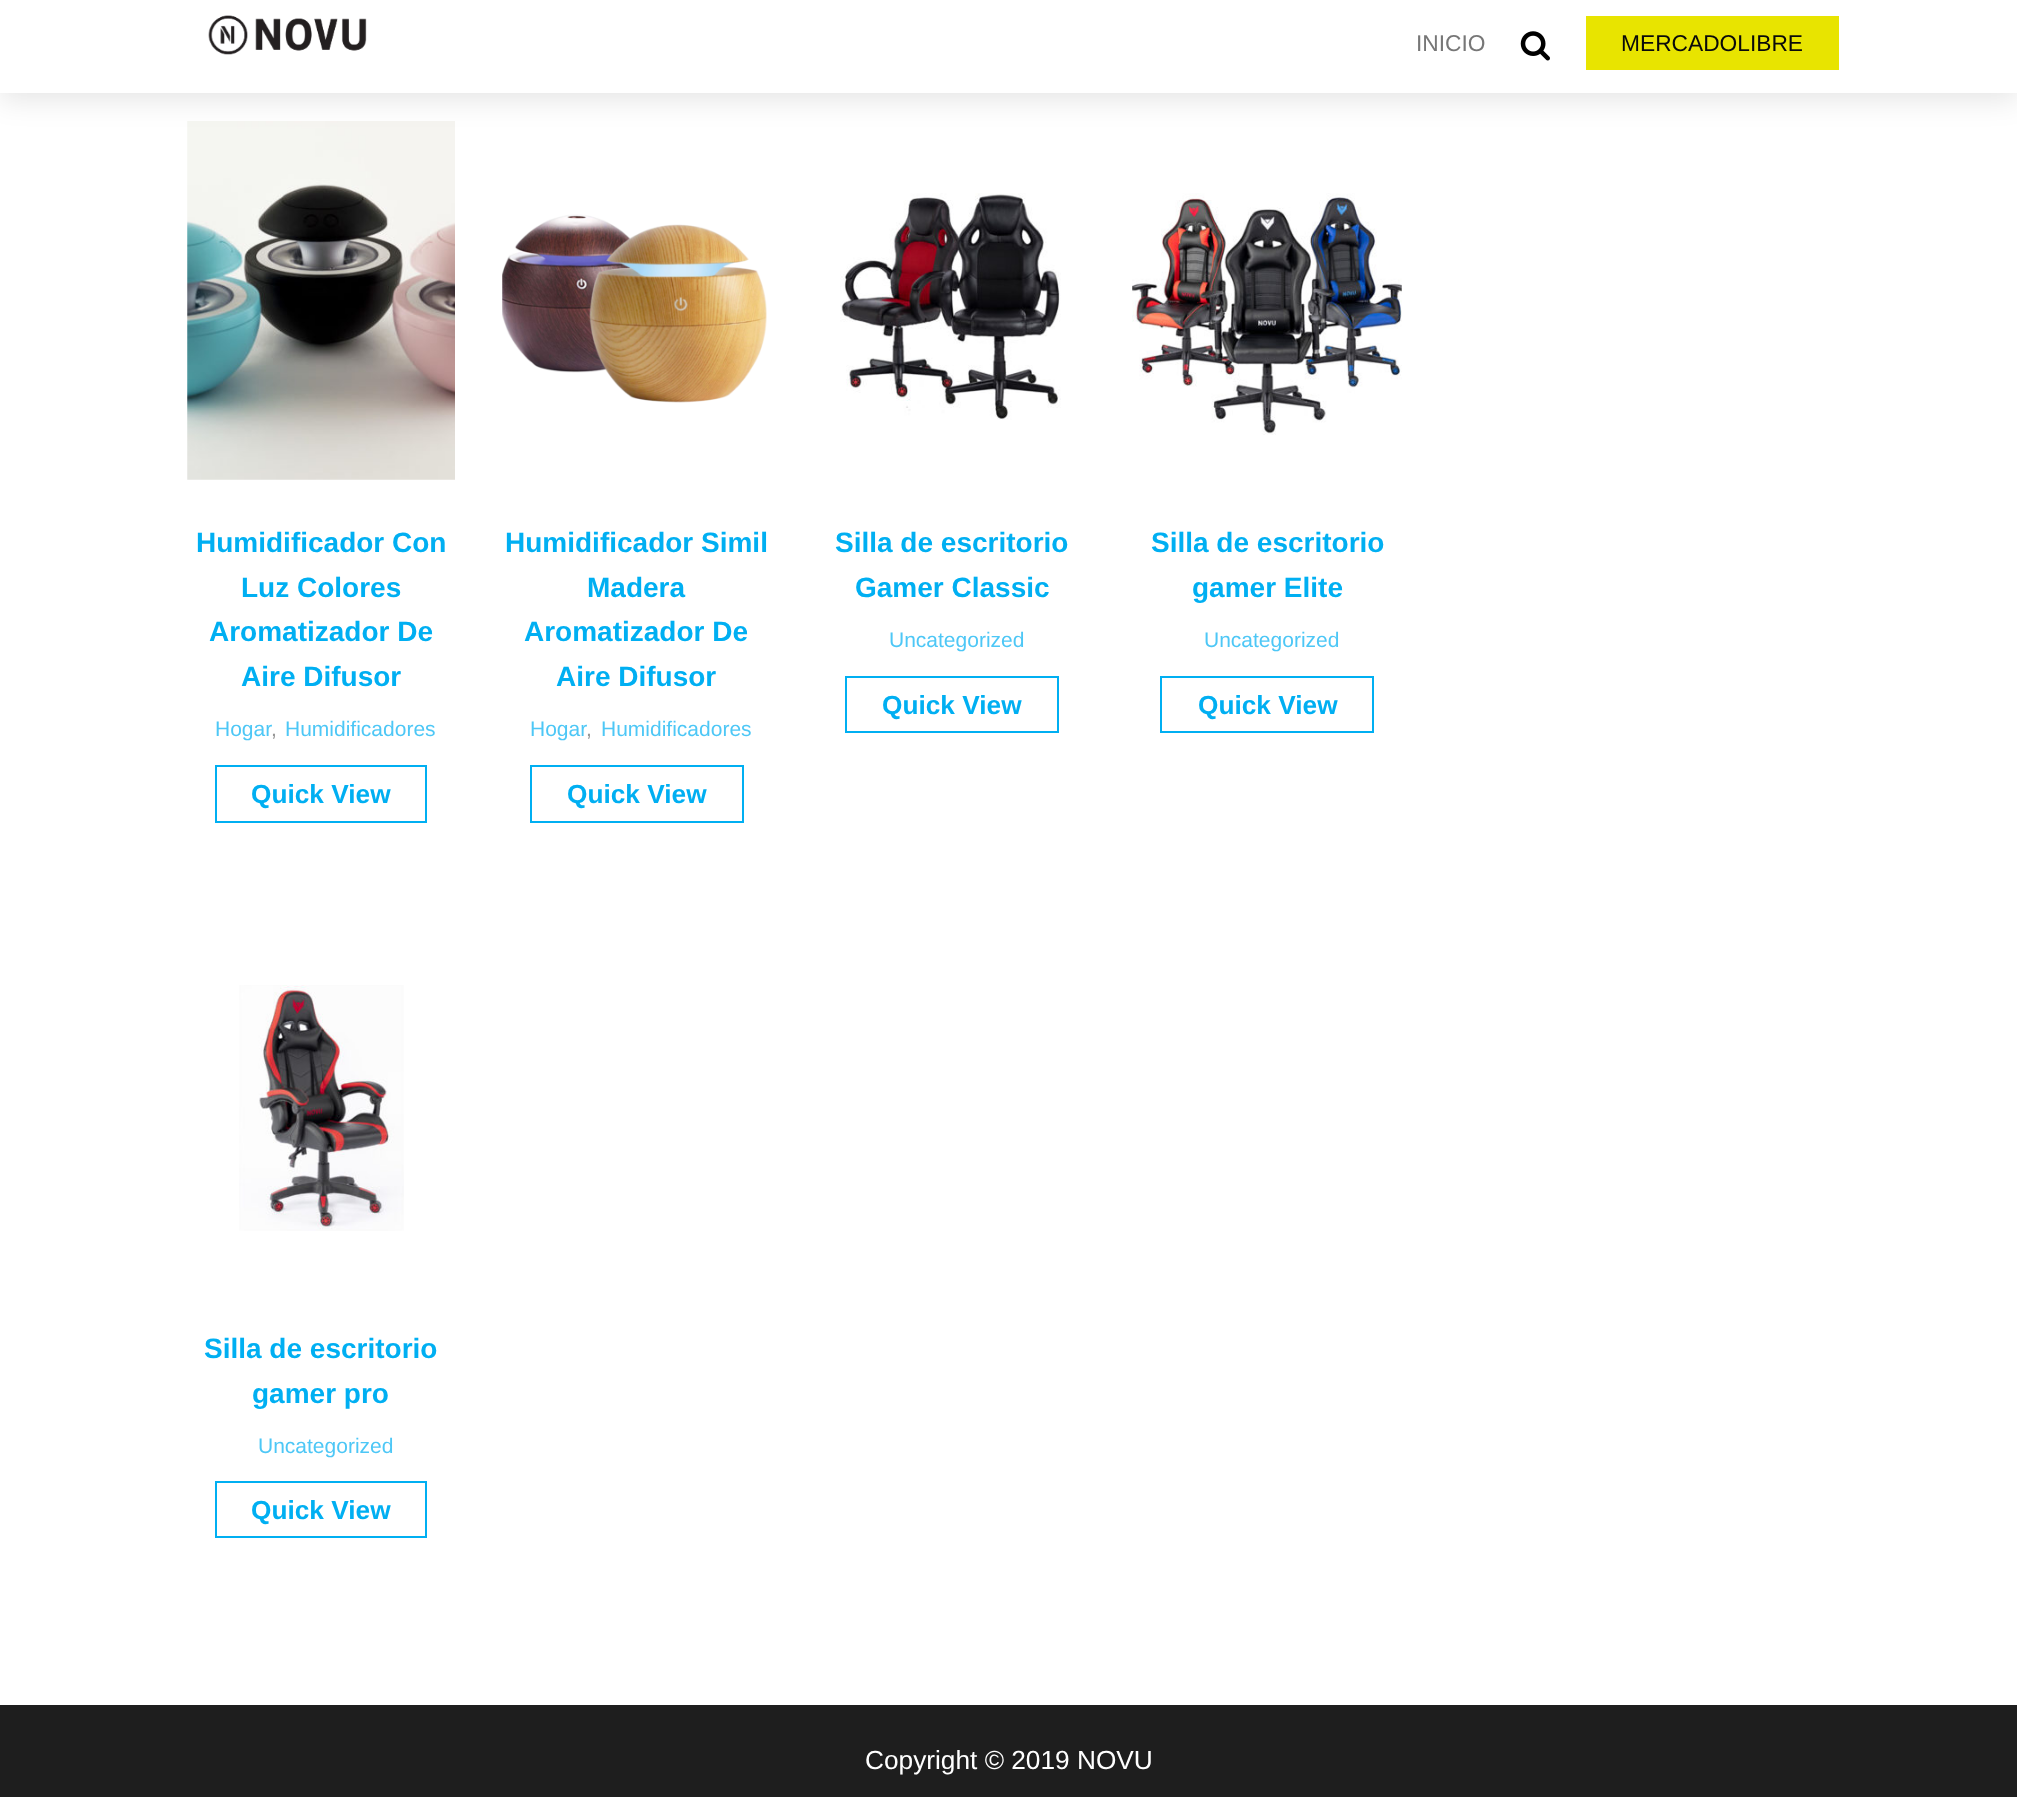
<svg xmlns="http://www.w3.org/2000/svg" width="2017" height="1797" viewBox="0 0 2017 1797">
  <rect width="100%" height="100%" fill="rgb(255,255,255)"/>
  <image x="187" y="121" width="268" height="359" href="pic3.png"/>
  <rect x="0" y="7" width="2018" height="93" fill="rgba(0,0,0,0.1)" filter="blur(14px)"/>
  <rect x="0" y="0" width="2017" height="93" fill="rgb(255,255,255)"/>
  <image x="208" y="15" width="159" height="40" href="pic1.png"/>
  <text x="1416" y="51" font-family="Liberation Sans" font-size="22.75" fill="rgb(119,119,119)">INICIO</text>
  <image x="1520" y="31" width="30" height="30" href="pic2.png"/>
  <rect x="1586" y="16" width="253" height="54" fill="rgb(232,228,0)"/>
  <text x="1621" y="51" font-family="Liberation Sans" font-size="22.75" fill="rgb(10,10,10)">MERCADOLIBRE</text>
  <g font-family="Liberation Sans" font-size="28" font-weight="bold" fill="rgb(0,175,242)">
    <text x="196" y="552">Humidificador Con</text>
    <text x="241" y="597">Luz Colores</text>
    <text x="209" y="641">Aromatizador De</text>
    <text x="241" y="686">Aire Difusor</text>
  </g>
  <text x="215" y="736" font-family="Liberation Sans" font-size="21" fill="rgb(77,199,246)">Hogar</text>
  <text x="271" y="736" font-family="Liberation Sans" font-size="21" fill="rgb(149,149,149)">,</text>
  <text x="285" y="736" font-family="Liberation Sans" font-size="21" fill="rgb(77,199,246)">Humidificadores</text>
  <rect x="216" y="766" width="210" height="56" fill="none" stroke="rgb(0,175,242)" stroke-width="2"/>
  <text x="251" y="803" font-family="Liberation Sans" font-size="26.25" font-weight="bold" fill="rgb(0,175,242)">Quick View</text>
  <image x="502" y="214" width="265" height="189" href="pic4.png"/>
  <g font-family="Liberation Sans" font-size="28" font-weight="bold" fill="rgb(0,175,242)">
    <text x="505" y="552">Humidificador Simil</text>
    <text x="587" y="597">Madera</text>
    <text x="524" y="641">Aromatizador De</text>
    <text x="556" y="686">Aire Difusor</text>
  </g>
  <text x="530" y="736" font-family="Liberation Sans" font-size="21" fill="rgb(77,199,246)">Hogar</text>
  <text x="586" y="736" font-family="Liberation Sans" font-size="21" fill="rgb(149,149,149)">,</text>
  <text x="601" y="736" font-family="Liberation Sans" font-size="21" fill="rgb(77,199,246)">Humidificadores</text>
  <rect x="531" y="766" width="212" height="56" fill="none" stroke="rgb(0,175,242)" stroke-width="2"/>
  <text x="567" y="803" font-family="Liberation Sans" font-size="26.25" font-weight="bold" fill="rgb(0,175,242)">Quick View</text>
  <image x="840" y="193" width="221" height="227" href="pic5.png"/>
  <g font-family="Liberation Sans" font-size="28" font-weight="bold" fill="rgb(0,175,242)">
    <text x="835" y="552">Silla de escritorio</text>
    <text x="855" y="597">Gamer Classic</text>
  </g>
  <text x="889" y="647" font-family="Liberation Sans" font-size="21" fill="rgb(77,199,246)">Uncategorized</text>
  <rect x="846" y="677" width="212" height="55" fill="none" stroke="rgb(0,175,242)" stroke-width="2"/>
  <text x="882" y="714" font-family="Liberation Sans" font-size="26.25" font-weight="bold" fill="rgb(0,175,242)">Quick View</text>
  <image x="1132" y="193" width="270" height="242" href="pic6.png"/>
  <g font-family="Liberation Sans" font-size="28" font-weight="bold" fill="rgb(0,175,242)">
    <text x="1151" y="552">Silla de escritorio</text>
    <text x="1192" y="597">gamer Elite</text>
  </g>
  <text x="1204" y="647" font-family="Liberation Sans" font-size="21" fill="rgb(77,199,246)">Uncategorized</text>
  <rect x="1161" y="677" width="212" height="55" fill="none" stroke="rgb(0,175,242)" stroke-width="2"/>
  <text x="1198" y="714" font-family="Liberation Sans" font-size="26.25" font-weight="bold" fill="rgb(0,175,242)">Quick View</text>
  <image x="239" y="985" width="165" height="246" href="pic7.png"/>
  <g font-family="Liberation Sans" font-size="28" font-weight="bold" fill="rgb(0,175,242)">
    <text x="204" y="1358">Silla de escritorio</text>
    <text x="252" y="1403">gamer pro</text>
  </g>
  <text x="258" y="1453" font-family="Liberation Sans" font-size="21" fill="rgb(77,199,246)">Uncategorized</text>
  <rect x="216" y="1482" width="210" height="55" fill="none" stroke="rgb(0,175,242)" stroke-width="2"/>
  <text x="251" y="1519" font-family="Liberation Sans" font-size="26.25" font-weight="bold" fill="rgb(0,175,242)">Quick View</text>
  <rect x="0" y="1705" width="2017" height="92" fill="rgb(30,30,30)"/>
  <text x="865" y="1769" font-family="Liberation Sans" font-size="26.25" fill="rgb(255,255,255)">Copyright © 2019 NOVU</text>
</svg>
